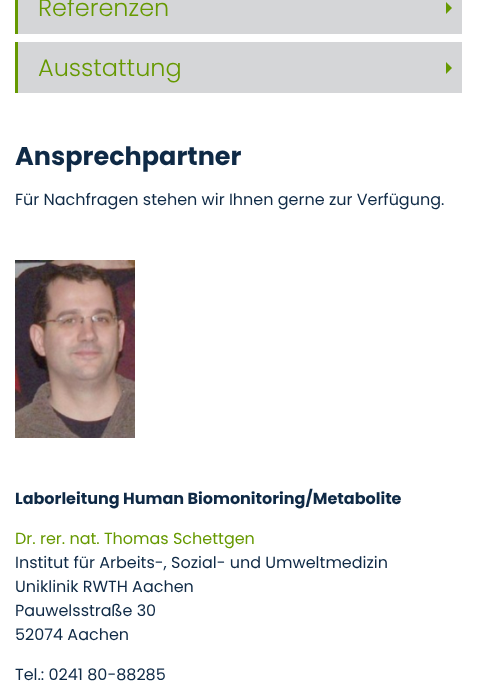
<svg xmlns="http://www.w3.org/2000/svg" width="477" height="684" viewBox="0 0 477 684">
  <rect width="100%" height="100%" fill="rgb(255,255,255)"/>
  <rect x="18" y="0" width="444" height="34" fill="rgb(213,214,216)"/>
  <rect x="15" y="0" width="3" height="34" fill="rgb(102,153,0)"/>
  <text x="38" y="16" font-family="Poppins" font-size="24" font-weight="300" fill="rgb(102,153,0)">Referenzen</text>
  <path d="M446 14V2L452 8Z" fill="rgb(102,153,0)"/>
  <rect x="18" y="42" width="444" height="51" fill="rgb(213,214,216)"/>
  <rect x="15" y="42" width="3" height="51" fill="rgb(102,153,0)"/>
  <text x="38" y="76" font-family="Poppins" font-size="24" font-weight="300" fill="rgb(102,153,0)">Ausstattung</text>
  <path d="M446 74V62L452 68Z" fill="rgb(102,153,0)"/>
  <text x="15" y="165" font-family="Poppins" font-size="25.5" font-weight="bold" fill="rgb(15,42,70)">Ansprechpartner</text>
  <text x="15" y="205" font-family="Poppins" font-size="16" fill="rgb(15,42,70)">Für Nachfragen stehen wir Ihnen gerne zur Verfügung.</text>
  <image x="15" y="260" width="120" height="178" href="pic1.png"/>
  <text x="15" y="504" font-family="Poppins" font-size="16" font-weight="bold" fill="rgb(15,42,70)">Laborleitung Human Biomonitoring/Metabolite</text>
  <text x="15" y="544" font-family="Poppins" font-size="16" fill="rgb(102,153,0)">Dr. rer. nat. Thomas Schettgen</text>
  <g font-family="Poppins" font-size="16" fill="rgb(15,42,70)">
    <text>
      <tspan x="15" y="568">Institut für Arbeits-, Sozial- und Umweltmedizin</tspan>
      <tspan x="15" y="592">Uniklinik RWTH Aachen</tspan>
      <tspan x="15" y="616">Pauwelsstraße 30</tspan>
      <tspan x="15" y="640">52074 Aachen</tspan>
    </text>
    <text x="15" y="680">Tel.: 0241 80-88285</text>
  </g>
</svg>
